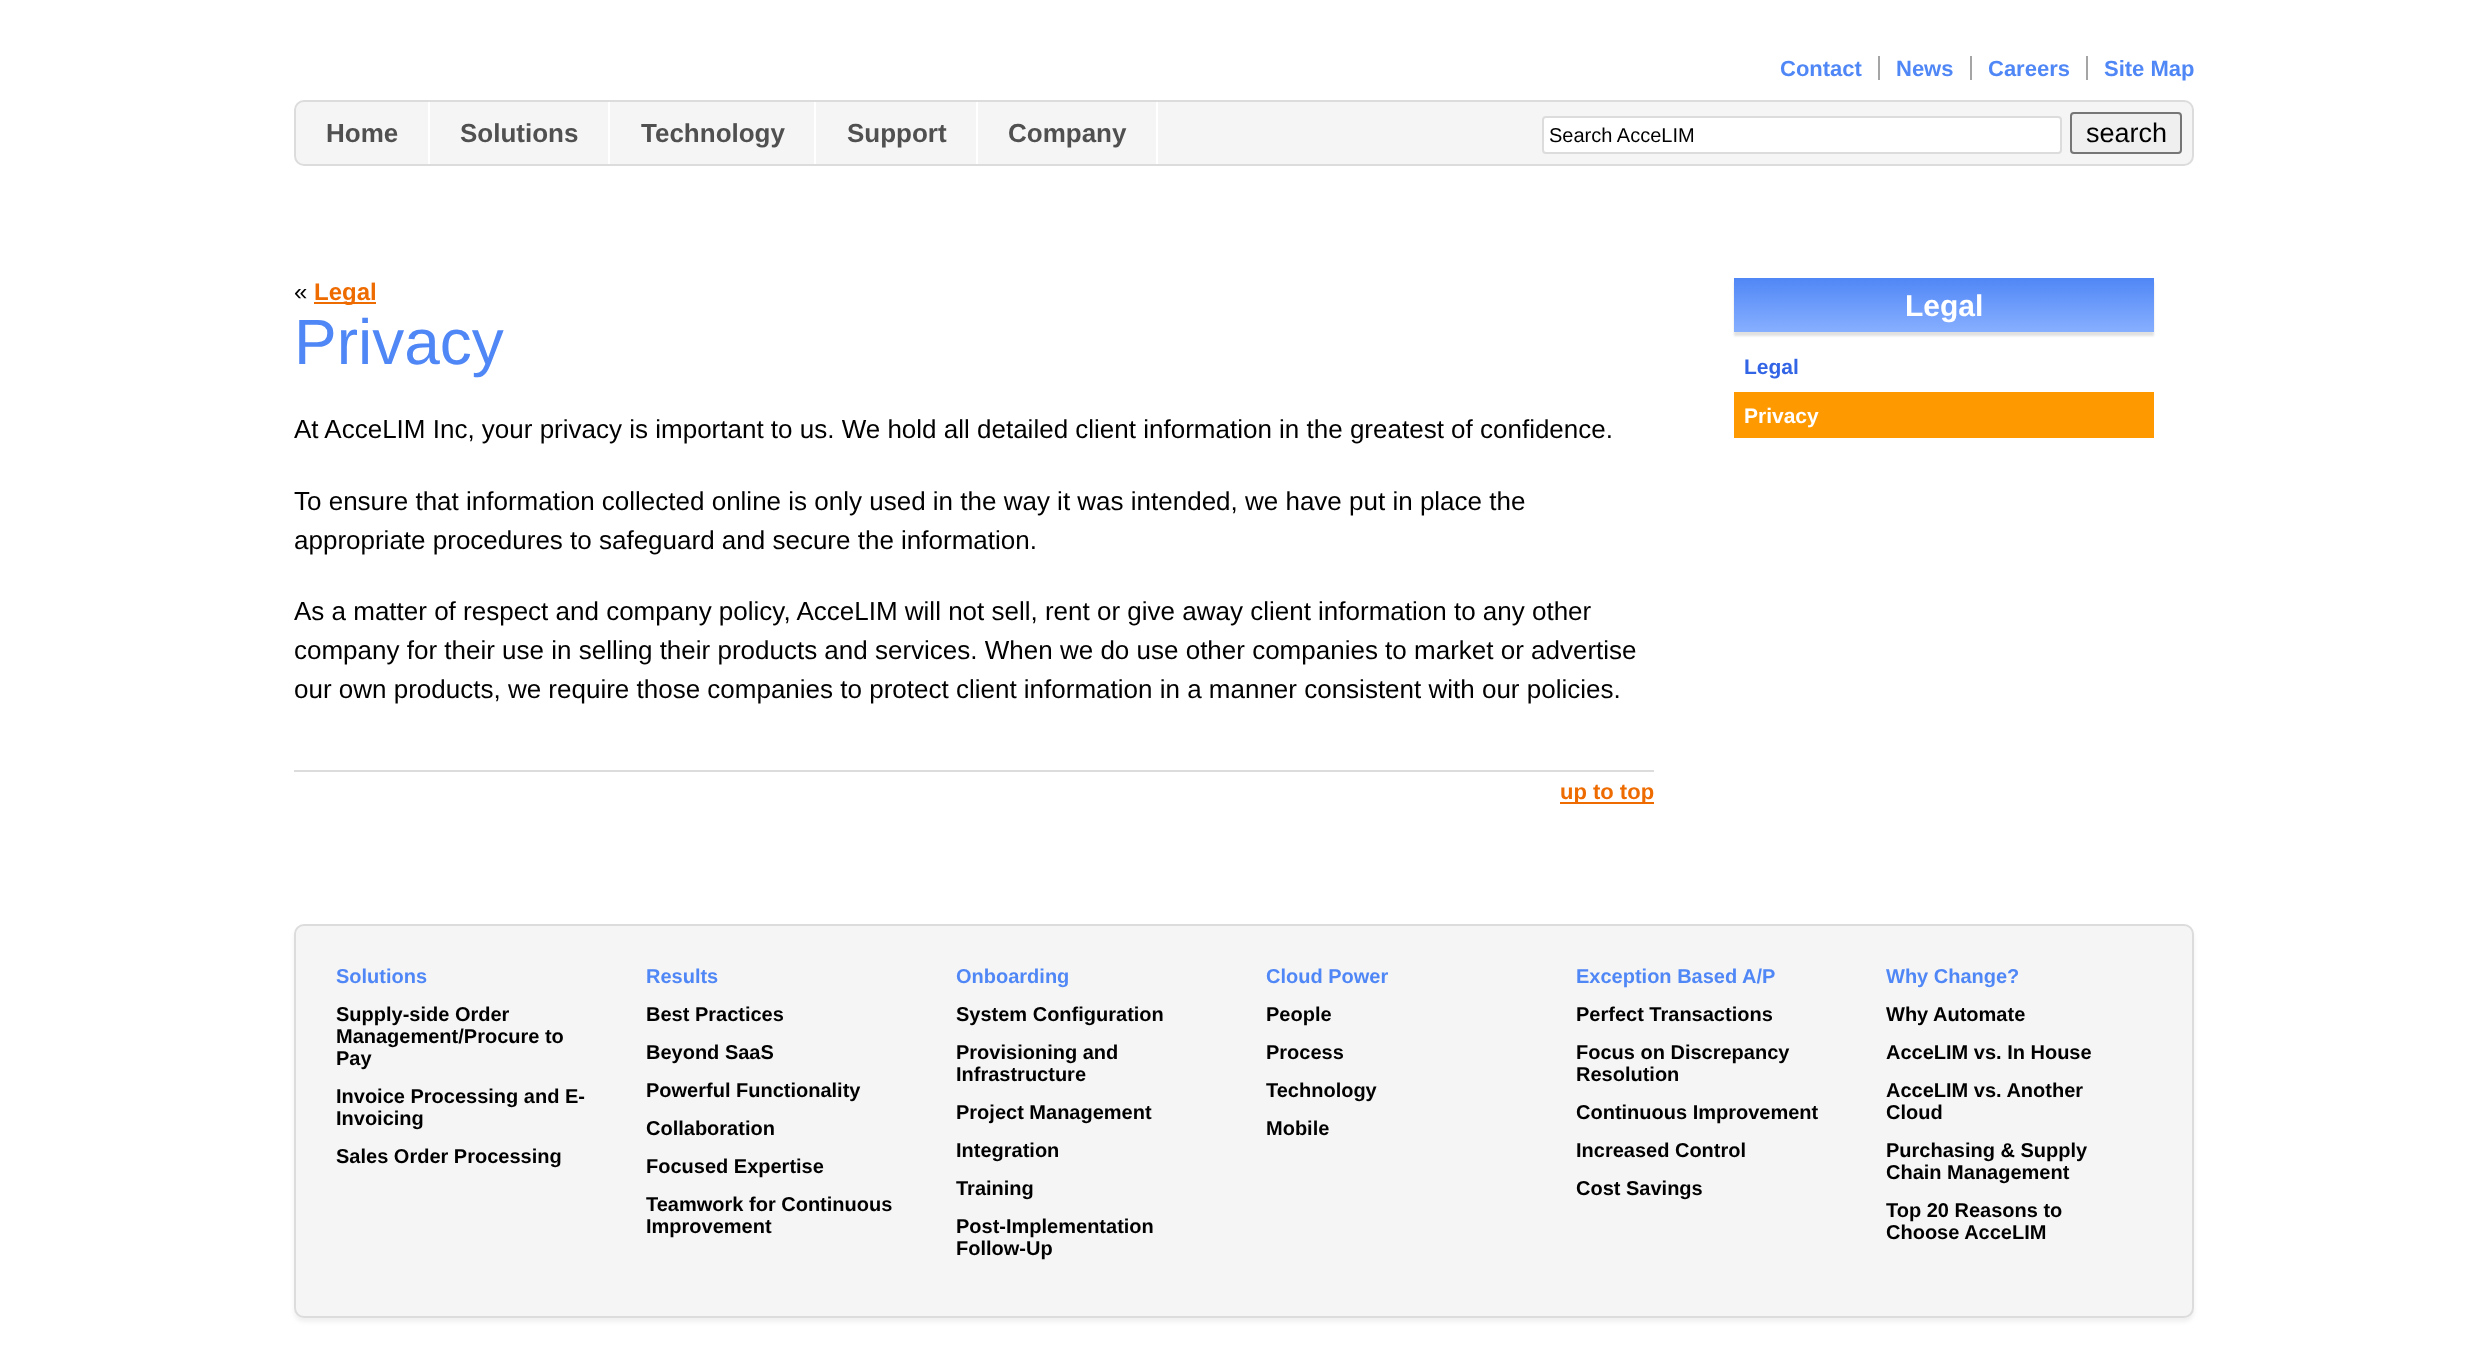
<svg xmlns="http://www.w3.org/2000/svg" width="2488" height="1346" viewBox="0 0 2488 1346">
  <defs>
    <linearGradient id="g1" gradientUnits="userSpaceOnUse" x1="1734" y1="278" x2="1734" y2="332"><stop offset="0" stop-color="rgb(80,135,246)"/><stop offset="1" stop-color="rgb(135,175,255)"/></linearGradient>
  </defs>
  <rect width="100%" height="100%" fill="rgb(255,255,255)"/>
  <text x="1780" y="76" font-family="Liberation Sans" font-size="22" font-weight="bold" fill="rgb(80,135,246)">Contact</text>
  <rect x="1878" y="56" width="2" height="24" fill="rgb(165,165,165)"/>
  <text x="1896" y="76" font-family="Liberation Sans" font-size="22" font-weight="bold" fill="rgb(80,135,246)">News</text>
  <rect x="1970" y="56" width="2" height="24" fill="rgb(165,165,165)"/>
  <text x="1988" y="76" font-family="Liberation Sans" font-size="22" font-weight="bold" fill="rgb(80,135,246)">Careers</text>
  <rect x="2086" y="56" width="2" height="24" fill="rgb(165,165,165)"/>
  <text x="2104" y="76" font-family="Liberation Sans" font-size="22" font-weight="bold" fill="rgb(80,135,246)">Site Map</text>
  <rect x="295" y="101" width="1898" height="64" rx="9" fill="rgb(245,245,245)" stroke="rgb(220,220,220)" stroke-width="2"/>
  <rect x="428" y="102" width="2" height="62" fill="rgb(255,255,255)"/>
  <text x="326" y="142" font-family="Liberation Sans" font-size="26" font-weight="bold" fill="rgb(80,80,80)">Home</text>
  <rect x="608" y="102" width="2" height="62" fill="rgb(255,255,255)"/>
  <text x="460" y="142" font-family="Liberation Sans" font-size="26" font-weight="bold" fill="rgb(80,80,80)">Solutions</text>
  <rect x="814" y="102" width="2" height="62" fill="rgb(255,255,255)"/>
  <text x="641" y="142" font-family="Liberation Sans" font-size="26" font-weight="bold" fill="rgb(80,80,80)">Technology</text>
  <rect x="976" y="102" width="2" height="62" fill="rgb(255,255,255)"/>
  <text x="847" y="142" font-family="Liberation Sans" font-size="26" font-weight="bold" fill="rgb(80,80,80)">Support</text>
  <rect x="1156" y="102" width="2" height="62" fill="rgb(255,255,255)"/>
  <text x="1008" y="142" font-family="Liberation Sans" font-size="26" font-weight="bold" fill="rgb(80,80,80)">Company</text>
  <rect x="1543" y="117" width="518" height="36" rx="3" fill="rgb(255,255,255)" stroke="rgb(220,220,220)" stroke-width="2"/>
  <text x="1549" y="142" font-family="Liberation Sans" font-size="20" fill="rgb(0,0,0)">Search AcceLIM</text>
  <rect x="2071" y="113" width="110" height="40" rx="3" fill="rgb(239,239,239)" stroke="rgb(118,118,118)" stroke-width="2"/>
  <text x="2086" y="142" font-family="Liberation Sans" font-size="27" fill="rgb(0,0,0)">search</text>
  <text x="294" y="300" font-family="Liberation Sans" font-size="24" fill="rgb(0,0,0)">«</text>
  <rect x="314" y="302" width="62" height="2" fill="rgb(238,107,0)"/>
  <text x="314" y="300" font-family="Liberation Sans" font-size="24" font-weight="bold" fill="rgb(238,107,0)">Legal</text>
  <text x="294" y="364" font-family="Liberation Sans" font-size="64" fill="rgb(80,135,246)">Privacy</text>
  <g font-family="Liberation Sans" font-size="26" fill="rgb(0,0,0)">
    <text x="294" y="438">At AcceLIM Inc, your privacy is important to us. We hold all detailed client information in the greatest of confidence.</text>
    <text>
      <tspan x="294" y="510">To ensure that information collected online is only used in the way it was intended, we have put in place the</tspan>
      <tspan x="294" y="549">appropriate procedures to safeguard and secure the information.</tspan>
    </text>
    <text>
      <tspan x="294" y="620">As a matter of respect and company policy, AcceLIM will not sell, rent or give away client information to any other</tspan>
      <tspan x="294" y="659">company for their use in selling their products and services. When we do use other companies to market or advertise</tspan>
      <tspan x="294" y="698">our own products, we require those companies to protect client information in a manner consistent with our policies.</tspan>
    </text>
  </g>
  <rect x="294" y="770" width="1360" height="2" fill="rgb(220,220,220)"/>
  <rect x="1560" y="802" width="94" height="2" fill="rgb(238,107,0)"/>
  <text x="1560" y="799" font-family="Liberation Sans" font-size="22" font-weight="bold" fill="rgb(238,107,0)">up to top</text>
  <rect x="1734" y="282" width="420" height="54" fill="rgb(225,225,225)" filter="blur(1px)"/>
  <rect x="1734" y="278" width="420" height="54" fill="url(#g1)"/>
  <text x="1905" y="316" font-family="Liberation Sans" font-size="30" font-weight="bold" fill="rgb(255,255,255)">Legal</text>
  <text x="1744" y="374" font-family="Liberation Sans" font-size="21" font-weight="bold" fill="rgb(50,100,230)">Legal</text>
  <rect x="1734" y="392" width="420" height="46" fill="rgb(254,153,0)"/>
  <text x="1744" y="423" font-family="Liberation Sans" font-size="21" font-weight="bold" fill="rgb(255,255,255)">Privacy</text>
  <rect x="294" y="928" width="1900" height="394" rx="10" fill="rgb(240,240,240)" filter="blur(2px)"/>
  <rect x="295" y="925" width="1898" height="392" rx="9" fill="rgb(245,245,245)" stroke="rgb(220,220,220)" stroke-width="2"/>
  <text x="336" y="983" font-family="Liberation Sans" font-size="20" font-weight="bold" fill="rgb(80,135,246)">Solutions</text>
  <g font-family="Liberation Sans" font-size="20" font-weight="bold" fill="rgb(0,0,0)">
    <text>
      <tspan x="336" y="1021">Supply-side Order</tspan>
      <tspan x="336" y="1043">Management/Procure to</tspan>
      <tspan x="336" y="1065">Pay</tspan>
      <tspan x="336" y="1103">Invoice Processing and E-</tspan>
      <tspan x="336" y="1125">Invoicing</tspan>
      <tspan x="336" y="1163">Sales Order Processing</tspan>
    </text>
  </g>
  <text x="646" y="983" font-family="Liberation Sans" font-size="20" font-weight="bold" fill="rgb(80,135,246)">Results</text>
  <g font-family="Liberation Sans" font-size="20" font-weight="bold" fill="rgb(0,0,0)">
    <text>
      <tspan x="646" y="1021">Best Practices</tspan>
      <tspan x="646" y="1059">Beyond SaaS</tspan>
      <tspan x="646" y="1097">Powerful Functionality</tspan>
      <tspan x="646" y="1135">Collaboration</tspan>
      <tspan x="646" y="1173">Focused Expertise</tspan>
      <tspan x="646" y="1211">Teamwork for Continuous</tspan>
      <tspan x="646" y="1233">Improvement</tspan>
    </text>
  </g>
  <text x="956" y="983" font-family="Liberation Sans" font-size="20" font-weight="bold" fill="rgb(80,135,246)">Onboarding</text>
  <g font-family="Liberation Sans" font-size="20" font-weight="bold" fill="rgb(0,0,0)">
    <text>
      <tspan x="956" y="1021">System Configuration</tspan>
      <tspan x="956" y="1059">Provisioning and</tspan>
      <tspan x="956" y="1081">Infrastructure</tspan>
      <tspan x="956" y="1119">Project Management</tspan>
      <tspan x="956" y="1157">Integration</tspan>
      <tspan x="956" y="1195">Training</tspan>
      <tspan x="956" y="1233">Post-Implementation</tspan>
      <tspan x="956" y="1255">Follow-Up</tspan>
    </text>
  </g>
  <text x="1266" y="983" font-family="Liberation Sans" font-size="20" font-weight="bold" fill="rgb(80,135,246)">Cloud Power</text>
  <g font-family="Liberation Sans" font-size="20" font-weight="bold" fill="rgb(0,0,0)">
    <text>
      <tspan x="1266" y="1021">People</tspan>
      <tspan x="1266" y="1059">Process</tspan>
      <tspan x="1266" y="1097">Technology</tspan>
      <tspan x="1266" y="1135">Mobile</tspan>
    </text>
  </g>
  <text x="1576" y="983" font-family="Liberation Sans" font-size="20" font-weight="bold" fill="rgb(80,135,246)">Exception Based A/P</text>
  <g font-family="Liberation Sans" font-size="20" font-weight="bold" fill="rgb(0,0,0)">
    <text>
      <tspan x="1576" y="1021">Perfect Transactions</tspan>
      <tspan x="1576" y="1059">Focus on Discrepancy</tspan>
      <tspan x="1576" y="1081">Resolution</tspan>
      <tspan x="1576" y="1119">Continuous Improvement</tspan>
      <tspan x="1576" y="1157">Increased Control</tspan>
      <tspan x="1576" y="1195">Cost Savings</tspan>
    </text>
  </g>
  <text x="1886" y="983" font-family="Liberation Sans" font-size="20" font-weight="bold" fill="rgb(80,135,246)">Why Change?</text>
  <g font-family="Liberation Sans" font-size="20" font-weight="bold" fill="rgb(0,0,0)">
    <text>
      <tspan x="1886" y="1021">Why Automate</tspan>
      <tspan x="1886" y="1059">AcceLIM vs. In House</tspan>
      <tspan x="1886" y="1097">AcceLIM vs. Another</tspan>
      <tspan x="1886" y="1119">Cloud</tspan>
      <tspan x="1886" y="1157">Purchasing &amp; Supply</tspan>
      <tspan x="1886" y="1179">Chain Management</tspan>
      <tspan x="1886" y="1217">Top 20 Reasons to</tspan>
      <tspan x="1886" y="1239">Choose AcceLIM</tspan>
    </text>
  </g>
</svg>
